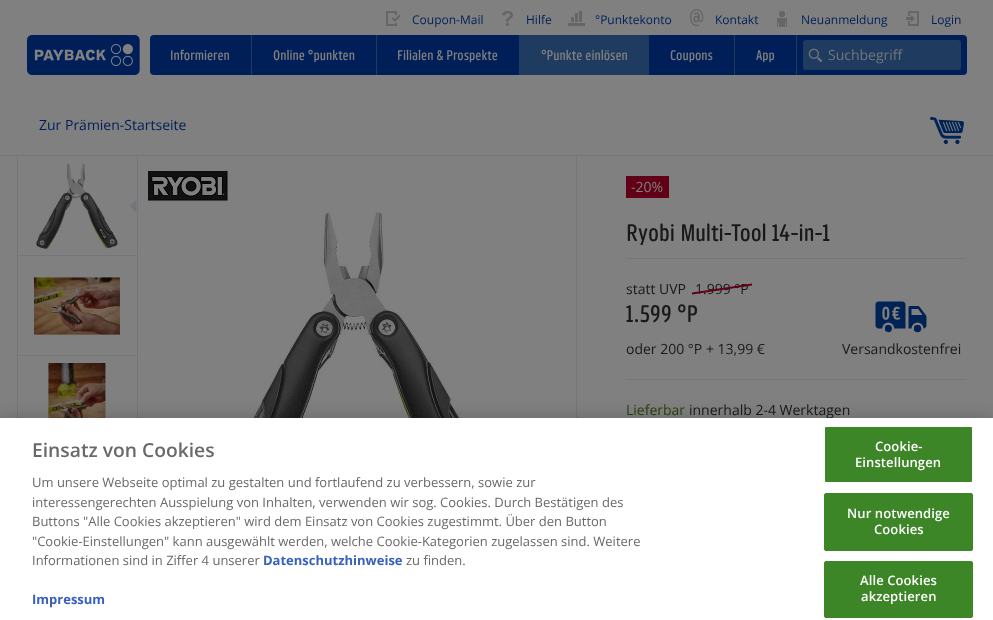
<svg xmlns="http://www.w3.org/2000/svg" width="993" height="620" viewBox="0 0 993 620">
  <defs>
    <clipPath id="clip1"><rect x="692" y="283" width="60" height="12"/></clipPath>
  </defs>
  <rect width="100%" height="100%" fill="rgb(115,118,123)"/>
  <rect x="0" y="0" width="993" height="155" fill="rgb(128,128,128)"/>
  <image x="386" y="11" width="15" height="15" href="pic1.png"/>
  <text x="412" y="24" font-family="Open Sans" font-size="12" fill="rgb(0,31,88)">Coupon-Mail</text>
  <image x="502" y="11" width="11" height="15" href="pic2.png"/>
  <text x="526" y="24" font-family="Open Sans" font-size="12" fill="rgb(0,31,88)">Hilfe</text>
  <image x="568" y="11" width="17" height="15" href="pic3.png"/>
  <text x="595" y="24" font-family="Open Sans" font-size="12" fill="rgb(0,31,88)">°Punktekonto</text>
  <image x="690" y="9" width="14" height="18" href="pic4.png"/>
  <text x="715" y="24" font-family="Open Sans" font-size="12" fill="rgb(0,31,88)">Kontakt</text>
  <image x="777" y="11" width="10" height="16" href="pic5.png"/>
  <text x="801" y="24" font-family="Open Sans" font-size="12" fill="rgb(0,31,88)">Neuanmeldung</text>
  <image x="906" y="11" width="13" height="15" href="pic6.png"/>
  <text x="931" y="24" font-family="Open Sans" font-size="12" fill="rgb(0,31,88)">Login</text>
  <image x="27" y="35" width="113" height="40" href="pic7.png"/>
  <rect x="150" y="35" width="817" height="40" rx="4" fill="rgb(0,31,88)"/>
  <rect x="251" y="35" width="1" height="40" fill="rgb(32,59,96)"/>
  <text x="170" y="60" font-family="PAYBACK" font-size="14" font-weight="300" fill="rgb(128,128,128)">Informieren</text>
  <rect x="376" y="35" width="1" height="40" fill="rgb(32,59,96)"/>
  <text x="273" y="60" font-family="PAYBACK" font-size="14" font-weight="300" fill="rgb(128,128,128)">Online °punkten</text>
  <rect x="519" y="35" width="130" height="40" fill="rgb(32,59,96)"/>
  <g font-family="PAYBACK" font-size="14" font-weight="300" fill="rgb(128,128,128)">
    <text x="397" y="60">Filialen &amp; Prospekte</text>
    <text x="541" y="60">°Punkte einlösen</text>
  </g>
  <rect x="734" y="35" width="1" height="40" fill="rgb(32,59,96)"/>
  <text x="670" y="60" font-family="PAYBACK" font-size="14" font-weight="300" fill="rgb(128,128,128)">Coupons</text>
  <rect x="796" y="35" width="1" height="40" fill="rgb(32,59,96)"/>
  <text x="756" y="60" font-family="PAYBACK" font-size="14" font-weight="300" fill="rgb(128,128,128)">App</text>
  <rect x="803" y="40" width="158" height="30" rx="3" fill="rgb(32,59,96)"/>
  <image x="808" y="48" width="14" height="14" href="pic8.png"/>
  <text x="828" y="60" font-family="Open Sans" font-size="14" fill="rgb(115,118,123)">Suchbegriff</text>
  <text x="39" y="130" font-family="Open Sans" font-size="14" fill="rgb(0,31,88)">Zur Prämien-Startseite</text>
  <image x="930" y="117" width="34" height="27" href="pic9.png"/>
  <rect x="0" y="156" width="993" height="262" fill="rgb(128,128,128)"/>
  <rect x="17" y="156" width="1" height="262" fill="rgb(115,118,123)"/>
  <rect x="18" y="255" width="119" height="1" fill="rgb(115,118,123)"/>
  <image x="36" y="163" width="82" height="86" href="pic10.png"/>
  <rect x="18" y="355" width="119" height="1" fill="rgb(115,118,123)"/>
  <image x="34" y="277" width="86" height="58" href="pic11.png"/>
  <image x="48" y="363" width="58" height="55" href="pic12.png"/>
  <image x="130" y="199" width="7" height="14" href="pic13.png"/>
  <rect x="576" y="156" width="1" height="262" fill="rgb(115,118,123)"/>
  <rect x="137" y="156" width="1" height="262" fill="rgb(115,118,123)"/>
  <image x="148" y="166" width="80" height="37" href="pic14.png"/>
  <image x="220" y="212" width="274" height="206" href="pic15.png"/>
  <rect x="626" y="176" width="43" height="22" fill="rgb(97,0,22)"/>
  <text x="631" y="192" font-family="Open Sans" font-size="14" fill="rgb(128,128,128)">-20%</text>
  <text x="626" y="241" font-family="PAYBACK" font-size="24" font-weight="300" fill="rgb(25,25,26)">Ryobi Multi-Tool 14-in-1</text>
  <rect x="626" y="258" width="340" height="1" fill="rgb(115,118,123)"/>
  <g font-family="Open Sans" font-size="14" fill="rgb(25,25,26)">
    <text x="626" y="294">statt UVP</text>
    <text x="695" y="294">1.999 °P</text>
  </g>
  <g clip-path="url(#clip1)">
    <path d="M688 294L755.5 284" fill="none" stroke="rgb(97,0,22)" stroke-width="2"/>
  </g>
  <text x="626" y="322" font-family="PAYBACK" font-size="24" font-weight="300" fill="rgb(25,25,26)">1.599 °P</text>
  <text x="626" y="354" font-family="Open Sans" font-size="14" fill="rgb(25,25,26)">oder 200 °P + 13,99 €</text>
  <image x="875" y="301" width="52" height="32" href="pic16.png"/>
  <text x="842" y="354" font-family="Open Sans" font-size="14" fill="rgb(25,25,26)">Versandkostenfrei</text>
  <rect x="626" y="379" width="340" height="1" fill="rgb(115,118,123)"/>
  <text x="626" y="415" font-family="Open Sans" font-size="14" fill="rgb(44,65,11)">Lieferbar</text>
  <text x="689" y="415" font-family="Open Sans" font-size="14" fill="rgb(25,25,26)">innerhalb 2-4 Werktagen</text>
  <rect x="0" y="418" width="993" height="202" fill="rgba(0,0,0,0.2)" filter="blur(9px)"/>
  <rect x="0" y="418" width="993" height="202" fill="rgb(255,255,255)"/>
  <text x="32" y="457" font-family="Open Sans" font-size="19.25" font-weight="600" fill="rgb(105,105,105)">Einsatz von Cookies</text>
  <g font-family="Open Sans" font-size="13" fill="rgb(105,105,105)">
    <text>
      <tspan x="32" y="487">Um unsere Webseite optimal zu gestalten und fortlaufend zu verbessern, sowie zur</tspan>
      <tspan x="32" y="507">interessengerechten Ausspielung von Inhalten, verwenden wir sog. Cookies. Durch Bestätigen des</tspan>
      <tspan x="32" y="526">Buttons "Alle Cookies akzeptieren" wird dem Einsatz von Cookies zugestimmt. Über den Button</tspan>
      <tspan x="32" y="546">"Cookie-Einstellungen" kann ausgewählt werden, welche Cookie-Kategorien zugelassen sind. Weitere</tspan>
      <tspan x="32" y="565">Informationen sind in Ziffer 4 unserer</tspan>
    </text>
  </g>
  <text x="263" y="565" font-family="Open Sans" font-size="13" font-weight="bold" fill="rgb(56,96,190)">Datenschutzhinweise</text>
  <text x="406" y="565" font-family="Open Sans" font-size="13" fill="rgb(105,105,105)">zu finden.</text>
  <text x="32" y="604" font-family="Open Sans" font-size="13" font-weight="bold" fill="rgb(56,96,190)">Impressum</text>
  <rect x="824.5" y="426.5" width="148" height="56" rx="1.5" fill="rgb(61,134,39)" stroke="rgb(255,255,255)"/>
  <g font-family="Open Sans" font-size="13" font-weight="600" letter-spacing="0.1" fill="rgb(255,255,255)">
    <text x="875" y="451">Cookie-</text>
    <text x="855" y="467">Einstellungen</text>
  </g>
  <rect x="824.5" y="493.5" width="148" height="57" rx="1.5" fill="rgb(61,134,39)" stroke="rgb(61,134,39)"/>
  <g font-family="Open Sans" font-size="13" font-weight="600" letter-spacing="0.1" fill="rgb(255,255,255)">
    <text x="847" y="518">Nur notwendige</text>
    <text x="874" y="534">Cookies</text>
  </g>
  <rect x="824.5" y="561.5" width="148" height="56" rx="1.5" fill="rgb(61,134,39)" stroke="rgb(61,134,39)"/>
  <g font-family="Open Sans" font-size="13" font-weight="600" letter-spacing="0.1" fill="rgb(255,255,255)">
    <text x="860" y="585">Alle Cookies</text>
    <text x="861" y="601">akzeptieren</text>
  </g>
</svg>
